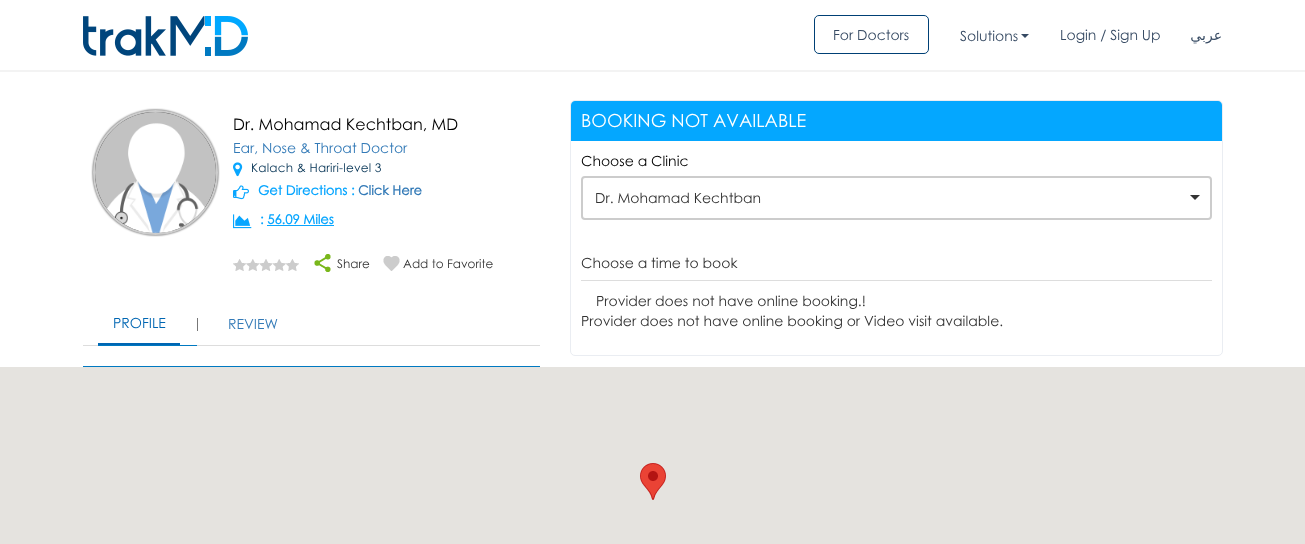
<svg xmlns="http://www.w3.org/2000/svg" width="1305" height="544" viewBox="0 0 1305 544">
  <defs>
    <clipPath id="clip1"><rect x="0" y="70" width="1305" height="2"/></clipPath>
  </defs>
  <rect width="100%" height="100%" fill="rgb(255,255,255)"/>
  <g clip-path="url(#clip1)">
    <rect x="-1" y="0" width="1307" height="72" fill="rgba(153,153,153,0.12)" filter="blur(0.5px)"/>
  </g>
  <image x="83" y="16" width="165" height="40" href="pic1.png"/>
  <rect x="814.5" y="15.5" width="114" height="38" rx="4.5" fill="none" stroke="rgb(0,64,117)"/>
  <g font-family="Century Gothic" font-size="14" fill="rgb(54,74,99)">
    <text x="833" y="40">For Doctors</text>
    <text x="960" y="41">Solutions</text>
  </g>
  <path d="M1021 34H1029L1025 38Z" fill="rgb(54,74,99)"/>
  <text x="1060" y="40" font-family="Century Gothic" font-size="14" fill="rgb(54,74,99)">Login / Sign Up</text>
  <text x="1222" y="40" font-family="DejaVu Sans" font-size="14" direction="rtl" fill="rgb(54,74,99)">عربي</text>
  <rect x="93" y="110" width="125" height="125" rx="62.5" fill="rgba(0,0,0,0.8)" filter="blur(1px)"/>
  <circle cx="155.5" cy="172.5" r="61.5" fill="none" stroke="rgb(204,204,204)" stroke-width="2"/>
  <image x="95" y="112" width="121" height="121" href="pic2.png"/>
  <text x="233" y="130" font-family="Century Gothic" font-size="16" fill="rgb(0,0,0)">Dr. Mohamad Kechtban, MD</text>
  <text x="233" y="153" font-family="Century Gothic" font-size="14" fill="rgb(51,122,183)">Ear, Nose &amp; Throat Doctor</text>
  <image x="233" y="162" width="10" height="15" href="pic3.png"/>
  <text x="251" y="172" font-family="Century Gothic" font-size="12" letter-spacing="0.2" fill="rgb(0,48,82)">Kalach &amp; Hariri-level 3</text>
  <image x="233" y="185" width="16" height="15" href="pic4.png"/>
  <text x="258" y="195" font-family="Century Gothic" font-size="13" font-weight="bold" fill="rgb(8,166,255)">Get Directions :</text>
  <text x="358" y="195" font-family="Century Gothic" font-size="13" font-weight="bold" fill="rgb(51,122,183)">Click Here</text>
  <image x="233" y="214" width="19" height="15" href="pic5.png"/>
  <text x="260" y="224" font-family="Century Gothic" font-size="13" font-weight="bold" fill="rgb(8,166,255)">: 56.09 Miles</text>
  <rect x="267" y="225" width="67" height="1" fill="rgb(8,166,255)"/>
  <image x="233" y="259" width="66" height="12" href="pic6.png"/>
  <image x="314" y="254" width="17" height="18" href="pic7.png"/>
  <text x="337" y="268" font-family="Century Gothic" font-size="12" fill="rgb(51,51,51)">Share</text>
  <image x="383" y="256" width="17" height="15" href="pic8.png"/>
  <text x="403" y="268" font-family="Century Gothic" font-size="12" fill="rgb(51,51,51)">Add to Favorite</text>
  <rect x="83" y="345" width="457" height="1" fill="rgb(221,221,221)"/>
  <rect x="98" y="345" width="99" height="1" fill="rgb(0,121,193)"/>
  <rect x="98" y="343" width="82" height="2" fill="rgb(0,102,179)"/>
  <text x="113" y="328" font-family="Century Gothic" font-size="14" fill="rgb(0,102,178)">PROFILE</text>
  <rect x="197" y="318" width="1" height="13" fill="rgb(119,119,119)"/>
  <text x="228" y="329" font-family="Century Gothic" font-size="14" fill="rgb(51,122,183)">REVIEW</text>
  <rect x="83" y="366" width="457" height="1" fill="rgb(0,121,193)"/>
  <rect x="570.5" y="100.5" width="652" height="255" rx="4.5" fill="none" stroke="rgb(234,237,242)"/>
  <path d="M575 101H1218C1220 101 1222 103 1222 105V141H571V105C571 103 573 101 575 101Z" fill="rgb(4,167,255)"/>
  <text x="581" y="127" font-family="Century Gothic" font-size="18" fill="rgb(255,255,255)">BOOKING NOT AVAILABLE</text>
  <text x="581" y="166" font-family="Century Gothic" font-size="14" fill="rgb(0,0,0)">Choose a Clinic</text>
  <rect x="582" y="177" width="629" height="42" rx="3" fill="none" stroke="rgb(204,204,204)" stroke-width="2"/>
  <text x="595" y="203" font-family="Century Gothic" font-size="14" fill="rgb(51,51,51)">Dr. Mohamad Kechtban</text>
  <path d="M1190 195H1200L1195 200Z" fill="rgb(51,51,51)"/>
  <rect x="581" y="280" width="631" height="1" fill="rgb(221,221,221)"/>
  <g font-family="Century Gothic" font-size="14" fill="rgb(51,51,51)">
    <text x="581" y="268">Choose a time to book</text>
    <text x="596" y="306">Provider does not have online booking.!</text>
    <text x="581" y="326">Provider does not have online booking or Video visit available.</text>
  </g>
  <rect x="0" y="367" width="1305" height="177" fill="rgb(229,227,223)"/>
  <image x="640" y="463" width="26" height="37" href="pic9.png"/>
</svg>
